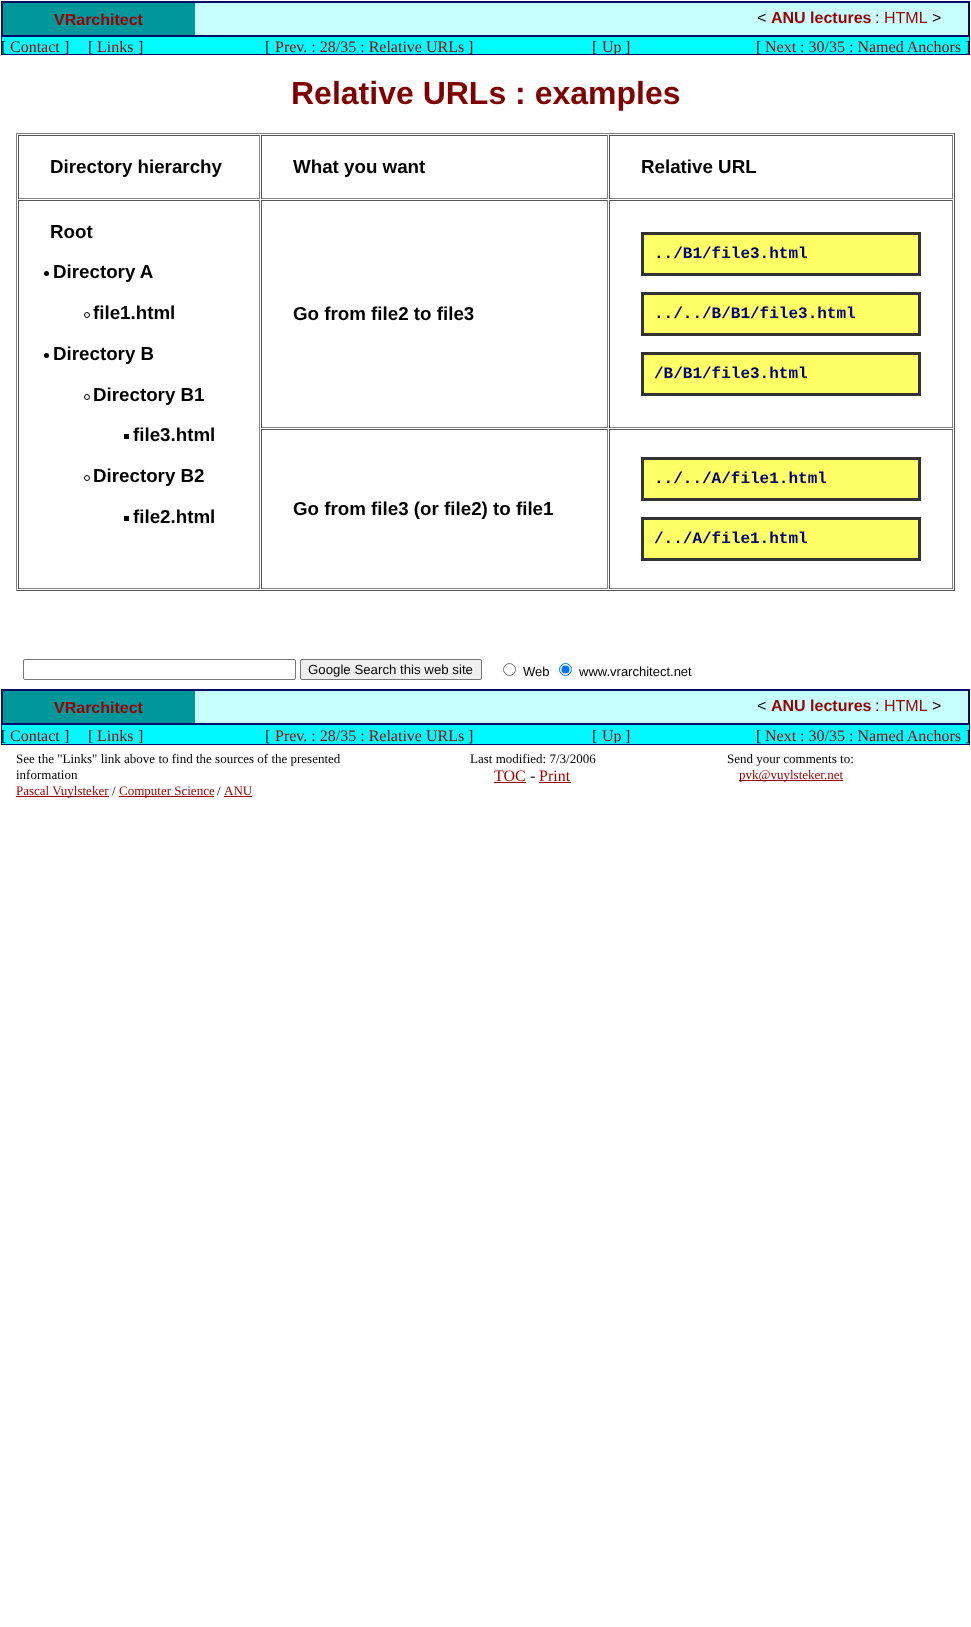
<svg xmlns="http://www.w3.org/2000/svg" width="971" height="1627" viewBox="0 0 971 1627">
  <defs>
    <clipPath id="clip1"><rect x="1" y="38" width="87" height="16"/></clipPath>
    <clipPath id="clip2"><rect x="88" y="38" width="68" height="16"/></clipPath>
    <clipPath id="clip3"><rect x="582" y="38" width="59" height="16"/></clipPath>
    <clipPath id="clip4"><rect x="1" y="727" width="87" height="16"/></clipPath>
    <clipPath id="clip5"><rect x="88" y="727" width="68" height="16"/></clipPath>
    <clipPath id="clip6"><rect x="582" y="727" width="59" height="16"/></clipPath>
  </defs>
  <rect width="100%" height="100%" fill="rgb(255,255,255)"/>
  <rect x="195" y="3" width="773" height="32" fill="rgb(201,254,255)"/>
  <rect x="2" y="2" width="967" height="34" fill="none" stroke="rgb(0,11,101)" stroke-width="2"/>
  <rect x="3" y="3" width="192" height="32" fill="rgb(0,151,154)"/>
  <text x="54" y="25" font-family="Liberation Sans" font-size="16" font-weight="bold" fill="rgb(153,0,0)">VRarchitect</text>
  <text x="757" y="23" font-family="Liberation Sans" font-size="16" fill="rgb(0,0,0)">&lt;</text>
  <text x="771" y="23" font-family="Liberation Sans" font-size="16" font-weight="bold" fill="rgb(153,0,0)">ANU lectures</text>
  <text x="875" y="23" font-family="Liberation Sans" font-size="16" fill="rgb(0,0,0)">:</text>
  <text x="884" y="23" font-family="Liberation Sans" font-size="16" fill="rgb(153,0,0)">HTML</text>
  <text x="932" y="23" font-family="Liberation Sans" font-size="16" fill="rgb(0,0,0)">&gt;</text>
  <rect x="1.5" y="36.5" width="968" height="18" fill="rgb(0,252,255)" stroke="rgb(0,16,100)"/>
  <g clip-path="url(#clip1)">
    <text x="1" y="52" font-family="Liberation Serif" font-size="16" fill="rgb(0,0,0)">[</text>
  </g>
  <text x="10" y="52" font-family="Liberation Serif" font-size="16" fill="rgb(153,0,0)">Contact</text>
  <g clip-path="url(#clip1)">
    <text x="64" y="52" font-family="Liberation Serif" font-size="16" fill="rgb(0,0,0)">]</text>
  </g>
  <g clip-path="url(#clip2)">
    <text x="88" y="52" font-family="Liberation Serif" font-size="16" fill="rgb(0,0,0)">[</text>
  </g>
  <text x="97" y="52" font-family="Liberation Serif" font-size="16" fill="rgb(153,0,0)">Links</text>
  <g clip-path="url(#clip2)">
    <text x="138" y="52" font-family="Liberation Serif" font-size="16" fill="rgb(0,0,0)">]</text>
  </g>
  <text x="265" y="52" font-family="Liberation Serif" font-size="16" fill="rgb(0,0,0)">[</text>
  <text x="275" y="52" font-family="Liberation Serif" font-size="16" fill="rgb(153,0,0)">Prev. : 28/35 : Relative URLs</text>
  <text x="468" y="52" font-family="Liberation Serif" font-size="16" fill="rgb(0,0,0)">]</text>
  <g clip-path="url(#clip3)">
    <text x="592" y="52" font-family="Liberation Serif" font-size="16" fill="rgb(0,0,0)">[</text>
    <text x="602" y="52" font-family="Liberation Serif" font-size="16" fill="rgb(153,0,0)">Up</text>
    <text x="625" y="52" font-family="Liberation Serif" font-size="16" fill="rgb(0,0,0)">]</text>
  </g>
  <text x="756" y="52" font-family="Liberation Serif" font-size="16" fill="rgb(0,0,0)">[</text>
  <text x="765" y="52" font-family="Liberation Serif" font-size="16" fill="rgb(153,0,0)">Next : 30/35 : Named Anchors</text>
  <text x="965" y="52" font-family="Liberation Serif" font-size="16" fill="rgb(0,0,0)">]</text>
  <text x="291" y="104" font-family="Liberation Sans" font-size="32" font-weight="bold" fill="rgb(128,0,0)">Relative URLs : examples</text>
  <rect x="16" y="133" width="939" height="1" fill="rgb(128,128,128)"/>
  <rect x="954" y="133" width="1" height="458" fill="rgb(85,85,85)"/>
  <rect x="16" y="590" width="939" height="1" fill="rgb(85,85,85)"/>
  <rect x="16" y="133" width="1" height="458" fill="rgb(128,128,128)"/>
  <rect x="18" y="135" width="242" height="1" fill="rgb(85,85,85)"/>
  <rect x="259" y="135" width="1" height="64" fill="rgb(128,128,128)"/>
  <rect x="18" y="198" width="242" height="1" fill="rgb(128,128,128)"/>
  <rect x="18" y="135" width="1" height="64" fill="rgb(85,85,85)"/>
  <text x="50" y="173" font-family="Liberation Sans" font-size="18.75" font-weight="bold" fill="rgb(0,0,0)">Directory hierarchy</text>
  <rect x="261" y="135" width="347" height="1" fill="rgb(85,85,85)"/>
  <rect x="607" y="135" width="1" height="64" fill="rgb(128,128,128)"/>
  <rect x="261" y="198" width="347" height="1" fill="rgb(128,128,128)"/>
  <rect x="261" y="135" width="1" height="64" fill="rgb(85,85,85)"/>
  <text x="293" y="173" font-family="Liberation Sans" font-size="18.75" font-weight="bold" fill="rgb(0,0,0)">What you want</text>
  <rect x="609" y="135" width="344" height="1" fill="rgb(85,85,85)"/>
  <rect x="952" y="135" width="1" height="64" fill="rgb(128,128,128)"/>
  <rect x="609" y="198" width="344" height="1" fill="rgb(128,128,128)"/>
  <rect x="609" y="135" width="1" height="64" fill="rgb(85,85,85)"/>
  <text x="641" y="173" font-family="Liberation Sans" font-size="18.75" font-weight="bold" fill="rgb(0,0,0)">Relative URL</text>
  <rect x="18" y="200" width="242" height="1" fill="rgb(85,85,85)"/>
  <rect x="259" y="200" width="1" height="389" fill="rgb(128,128,128)"/>
  <rect x="18" y="588" width="242" height="1" fill="rgb(128,128,128)"/>
  <rect x="18" y="200" width="1" height="389" fill="rgb(85,85,85)"/>
  <text x="50" y="238" font-family="Liberation Sans" font-size="18.75" font-weight="bold" fill="rgb(0,0,0)">Root</text>
  <circle cx="46.5" cy="273.5" r="2.5" fill="rgb(0,0,0)"/>
  <text x="53" y="278" font-family="Liberation Sans" font-size="18.75" font-weight="bold" fill="rgb(0,0,0)">Directory A</text>
  <circle cx="87" cy="315" r="2.5" fill="none" stroke="rgb(0,0,0)"/>
  <text x="93" y="319" font-family="Liberation Sans" font-size="18.75" font-weight="bold" fill="rgb(0,0,0)">file1.html</text>
  <circle cx="46.5" cy="355.5" r="2.5" fill="rgb(0,0,0)"/>
  <text x="53" y="360" font-family="Liberation Sans" font-size="18.75" font-weight="bold" fill="rgb(0,0,0)">Directory B</text>
  <circle cx="87" cy="397" r="2.5" fill="none" stroke="rgb(0,0,0)"/>
  <text x="93" y="401" font-family="Liberation Sans" font-size="18.75" font-weight="bold" fill="rgb(0,0,0)">Directory B1</text>
  <rect x="124" y="434" width="5" height="5" fill="rgb(0,0,0)"/>
  <text x="133" y="441" font-family="Liberation Sans" font-size="18.75" font-weight="bold" fill="rgb(0,0,0)">file3.html</text>
  <circle cx="87" cy="478" r="2.5" fill="none" stroke="rgb(0,0,0)"/>
  <text x="93" y="482" font-family="Liberation Sans" font-size="18.75" font-weight="bold" fill="rgb(0,0,0)">Directory B2</text>
  <rect x="124" y="516" width="5" height="5" fill="rgb(0,0,0)"/>
  <text x="133" y="523" font-family="Liberation Sans" font-size="18.75" font-weight="bold" fill="rgb(0,0,0)">file2.html</text>
  <rect x="261" y="200" width="347" height="1" fill="rgb(85,85,85)"/>
  <rect x="607" y="200" width="1" height="228" fill="rgb(128,128,128)"/>
  <rect x="261" y="427" width="347" height="1" fill="rgb(128,128,128)"/>
  <rect x="261" y="200" width="1" height="228" fill="rgb(85,85,85)"/>
  <text x="293" y="320" font-family="Liberation Sans" font-size="18.75" font-weight="bold" fill="rgb(0,0,0)">Go from file2 to file3</text>
  <rect x="609" y="200" width="344" height="1" fill="rgb(85,85,85)"/>
  <rect x="952" y="200" width="1" height="228" fill="rgb(128,128,128)"/>
  <rect x="609" y="427" width="344" height="1" fill="rgb(128,128,128)"/>
  <rect x="609" y="200" width="1" height="228" fill="rgb(85,85,85)"/>
  <rect x="642.5" y="233.5" width="277" height="41" fill="rgb(255,255,102)" stroke="rgb(51,51,51)" stroke-width="3"/>
  <text x="654" y="258" font-family="Liberation Mono" font-size="16" font-weight="bold" fill="rgb(0,0,102)">../B1/file3.html</text>
  <rect x="642.5" y="293.5" width="277" height="41" fill="rgb(255,255,102)" stroke="rgb(51,51,51)" stroke-width="3"/>
  <text x="654" y="318" font-family="Liberation Mono" font-size="16" font-weight="bold" fill="rgb(0,0,102)">../../B/B1/file3.html</text>
  <rect x="642.5" y="353.5" width="277" height="41" fill="rgb(255,255,102)" stroke="rgb(51,51,51)" stroke-width="3"/>
  <text x="654" y="378" font-family="Liberation Mono" font-size="16" font-weight="bold" fill="rgb(0,0,102)">/B/B1/file3.html</text>
  <rect x="261" y="429" width="347" height="1" fill="rgb(85,85,85)"/>
  <rect x="607" y="429" width="1" height="160" fill="rgb(128,128,128)"/>
  <rect x="261" y="588" width="347" height="1" fill="rgb(128,128,128)"/>
  <rect x="261" y="429" width="1" height="160" fill="rgb(85,85,85)"/>
  <text x="293" y="515" font-family="Liberation Sans" font-size="18.75" font-weight="bold" fill="rgb(0,0,0)">Go from file3 (or file2) to file1</text>
  <rect x="609" y="429" width="344" height="1" fill="rgb(85,85,85)"/>
  <rect x="952" y="429" width="1" height="160" fill="rgb(128,128,128)"/>
  <rect x="609" y="588" width="344" height="1" fill="rgb(128,128,128)"/>
  <rect x="609" y="429" width="1" height="160" fill="rgb(85,85,85)"/>
  <rect x="642.5" y="458.5" width="277" height="41" fill="rgb(255,255,102)" stroke="rgb(51,51,51)" stroke-width="3"/>
  <text x="654" y="483" font-family="Liberation Mono" font-size="16" font-weight="bold" fill="rgb(0,0,102)">../../A/file1.html</text>
  <rect x="642.5" y="518.5" width="277" height="41" fill="rgb(255,255,102)" stroke="rgb(51,51,51)" stroke-width="3"/>
  <text x="654" y="543" font-family="Liberation Mono" font-size="16" font-weight="bold" fill="rgb(0,0,102)">/../A/file1.html</text>
  <rect x="23.5" y="659.5" width="272" height="20" rx="1.5" fill="none" stroke="rgb(118,118,118)"/>
  <rect x="300.5" y="659.5" width="181" height="20" rx="1.5" fill="rgb(239,239,239)" stroke="rgb(118,118,118)"/>
  <text x="308" y="674" font-family="Liberation Sans" font-size="13.25" fill="rgb(0,0,0)">Google Search this web site</text>
  <circle cx="509.5" cy="669.5" r="6" fill="none" stroke="rgb(118,118,118)"/>
  <text x="523" y="676" font-family="Liberation Sans" font-size="13" fill="rgb(0,0,0)">Web</text>
  <circle cx="565.5" cy="669.5" r="6" fill="none" stroke="rgb(0,117,255)"/>
  <circle cx="565.5" cy="669.5" r="4" fill="rgb(0,117,255)"/>
  <text x="579" y="676" font-family="Liberation Sans" font-size="13" fill="rgb(0,0,0)">www.vrarchitect.net</text>
  <rect x="195" y="691" width="773" height="32" fill="rgb(198,253,255)"/>
  <rect x="2" y="690" width="967" height="34" fill="none" stroke="rgb(0,11,101)" stroke-width="2"/>
  <rect x="3" y="691" width="192" height="32" fill="rgb(0,151,154)"/>
  <text x="54" y="713" font-family="Liberation Sans" font-size="16" font-weight="bold" fill="rgb(153,0,0)">VRarchitect</text>
  <text x="757" y="711" font-family="Liberation Sans" font-size="16" fill="rgb(0,0,0)">&lt;</text>
  <text x="771" y="711" font-family="Liberation Sans" font-size="16" font-weight="bold" fill="rgb(153,0,0)">ANU lectures</text>
  <text x="875" y="711" font-family="Liberation Sans" font-size="16" fill="rgb(0,0,0)">:</text>
  <text x="884" y="711" font-family="Liberation Sans" font-size="16" fill="rgb(153,0,0)">HTML</text>
  <text x="932" y="711" font-family="Liberation Sans" font-size="16" fill="rgb(0,0,0)">&gt;</text>
  <rect x="1.5" y="724.5" width="968" height="20" fill="rgb(0,249,255)" stroke="rgb(0,16,100)"/>
  <g clip-path="url(#clip4)">
    <text x="1" y="741" font-family="Liberation Serif" font-size="16" fill="rgb(0,0,0)">[</text>
  </g>
  <text x="10" y="741" font-family="Liberation Serif" font-size="16" fill="rgb(153,0,0)">Contact</text>
  <g clip-path="url(#clip4)">
    <text x="64" y="741" font-family="Liberation Serif" font-size="16" fill="rgb(0,0,0)">]</text>
  </g>
  <g clip-path="url(#clip5)">
    <text x="88" y="741" font-family="Liberation Serif" font-size="16" fill="rgb(0,0,0)">[</text>
  </g>
  <text x="97" y="741" font-family="Liberation Serif" font-size="16" fill="rgb(153,0,0)">Links</text>
  <g clip-path="url(#clip5)">
    <text x="138" y="741" font-family="Liberation Serif" font-size="16" fill="rgb(0,0,0)">]</text>
  </g>
  <text x="265" y="741" font-family="Liberation Serif" font-size="16" fill="rgb(0,0,0)">[</text>
  <text x="275" y="741" font-family="Liberation Serif" font-size="16" fill="rgb(153,0,0)">Prev. : 28/35 : Relative URLs</text>
  <text x="468" y="741" font-family="Liberation Serif" font-size="16" fill="rgb(0,0,0)">]</text>
  <g clip-path="url(#clip6)">
    <text x="592" y="741" font-family="Liberation Serif" font-size="16" fill="rgb(0,0,0)">[</text>
    <text x="602" y="741" font-family="Liberation Serif" font-size="16" fill="rgb(153,0,0)">Up</text>
    <text x="625" y="741" font-family="Liberation Serif" font-size="16" fill="rgb(0,0,0)">]</text>
  </g>
  <text x="756" y="741" font-family="Liberation Serif" font-size="16" fill="rgb(0,0,0)">[</text>
  <text x="765" y="741" font-family="Liberation Serif" font-size="16" fill="rgb(153,0,0)">Next : 30/35 : Named Anchors</text>
  <text x="965" y="741" font-family="Liberation Serif" font-size="16" fill="rgb(0,0,0)">]</text>
  <g font-family="Liberation Serif" font-size="13" fill="rgb(0,0,0)">
    <text>
      <tspan x="16" y="763">See the "Links" link above to find the sources of the presented</tspan>
      <tspan x="16" y="779">information</tspan>
    </text>
  </g>
  <rect x="16" y="796" width="93" height="1" fill="rgb(153,0,0)"/>
  <text x="16" y="795" font-family="Liberation Serif" font-size="13" fill="rgb(153,0,0)">Pascal Vuylsteker</text>
  <text x="112" y="795" font-family="Liberation Serif" font-size="13" fill="rgb(0,0,0)">/</text>
  <rect x="119" y="796" width="95" height="1" fill="rgb(153,0,0)"/>
  <text x="119" y="795" font-family="Liberation Serif" font-size="13" fill="rgb(153,0,0)">Computer Science</text>
  <text x="217" y="795" font-family="Liberation Serif" font-size="13" fill="rgb(0,0,0)">/</text>
  <text x="224" y="795" font-family="Liberation Serif" font-size="13" fill="rgb(153,0,0)">ANU</text>
  <rect x="224" y="796" width="28" height="1" fill="rgb(153,0,0)"/>
  <g font-family="Liberation Serif" font-size="13" fill="rgb(0,0,0)">
    <text x="470" y="763">Last modified: 7/3/2006</text>
    <text x="727" y="763">Send your comments to:</text>
  </g>
  <rect x="739" y="780" width="104" height="1" fill="rgb(153,0,0)"/>
  <text x="739" y="779" font-family="Liberation Serif" font-size="13" fill="rgb(153,0,0)">pvk@vuylsteker.net</text>
  <text x="494" y="781" font-family="Liberation Serif" font-size="16" fill="rgb(153,0,0)">TOC</text>
  <rect x="494" y="782" width="32" height="1" fill="rgb(153,0,0)"/>
  <text x="530" y="781" font-family="Liberation Serif" font-size="16" fill="rgb(0,0,0)">-</text>
  <text x="539" y="781" font-family="Liberation Serif" font-size="16" fill="rgb(153,0,0)">Print</text>
  <rect x="539" y="782" width="32" height="1" fill="rgb(153,0,0)"/>
</svg>
